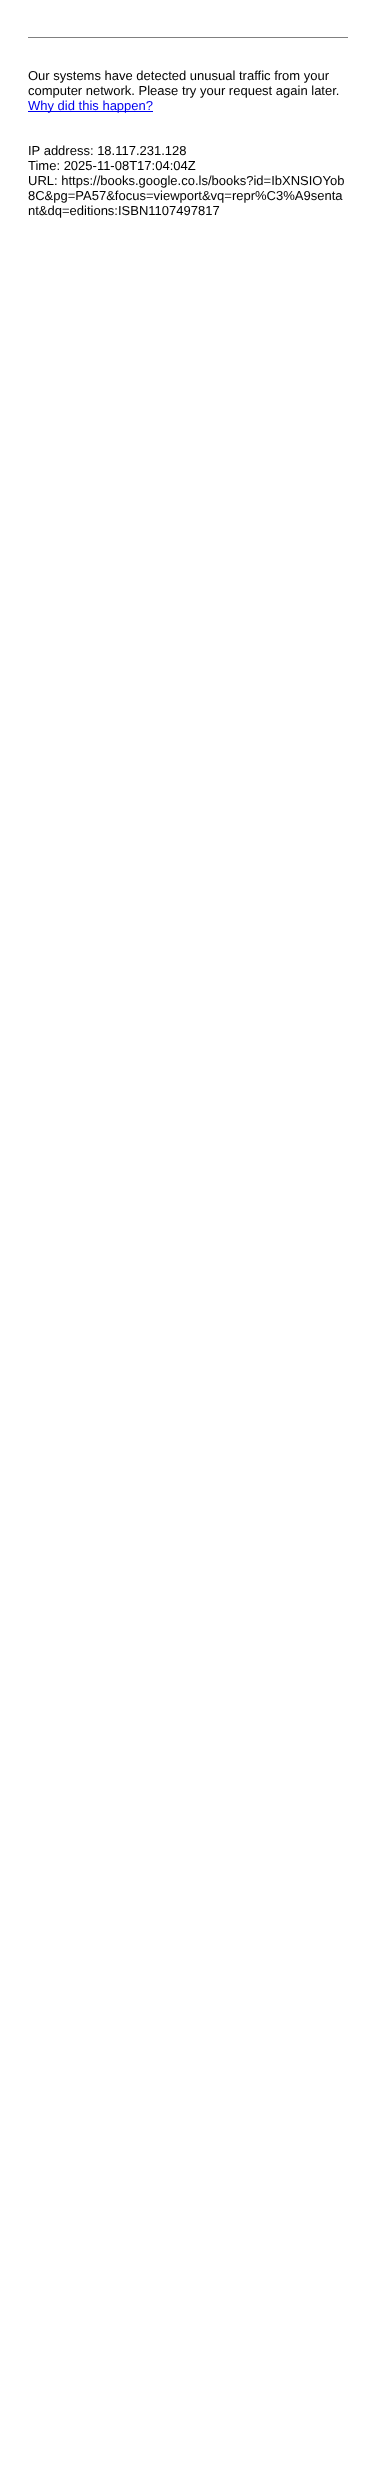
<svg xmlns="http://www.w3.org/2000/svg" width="376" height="2477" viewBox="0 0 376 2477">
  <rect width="100%" height="100%" fill="rgb(255,255,255)"/>
  <rect x="28" y="37" width="320" height="1" fill="rgb(128,128,128)"/>
  <g font-family="Liberation Sans" font-size="13" fill="rgb(0,0,0)">
    <text>
      <tspan x="28" y="80">Our systems have detected unusual traffic from your</tspan>
      <tspan x="28" y="95">computer network. Please try your request again later.</tspan>
    </text>
  </g>
  <rect x="28" y="111" width="125" height="1" fill="rgb(0,0,238)"/>
  <text x="28" y="110" font-family="Liberation Sans" font-size="13" fill="rgb(0,0,238)">Why did this happen?</text>
  <g font-family="Liberation Sans" font-size="13" fill="rgb(0,0,0)">
    <text>
      <tspan x="28" y="155">IP address: 18.117.231.128</tspan>
      <tspan x="28" y="170">Time: 2025-11-08T17:04:04Z</tspan>
      <tspan x="28" y="185">URL: https://books.google.co.ls/books?id=IbXNSIOYob</tspan>
      <tspan x="28" y="200">8C&amp;pg=PA57&amp;focus=viewport&amp;vq=repr%C3%A9senta</tspan>
      <tspan x="28" y="215">nt&amp;dq=editions:ISBN1107497817</tspan>
    </text>
  </g>
</svg>
